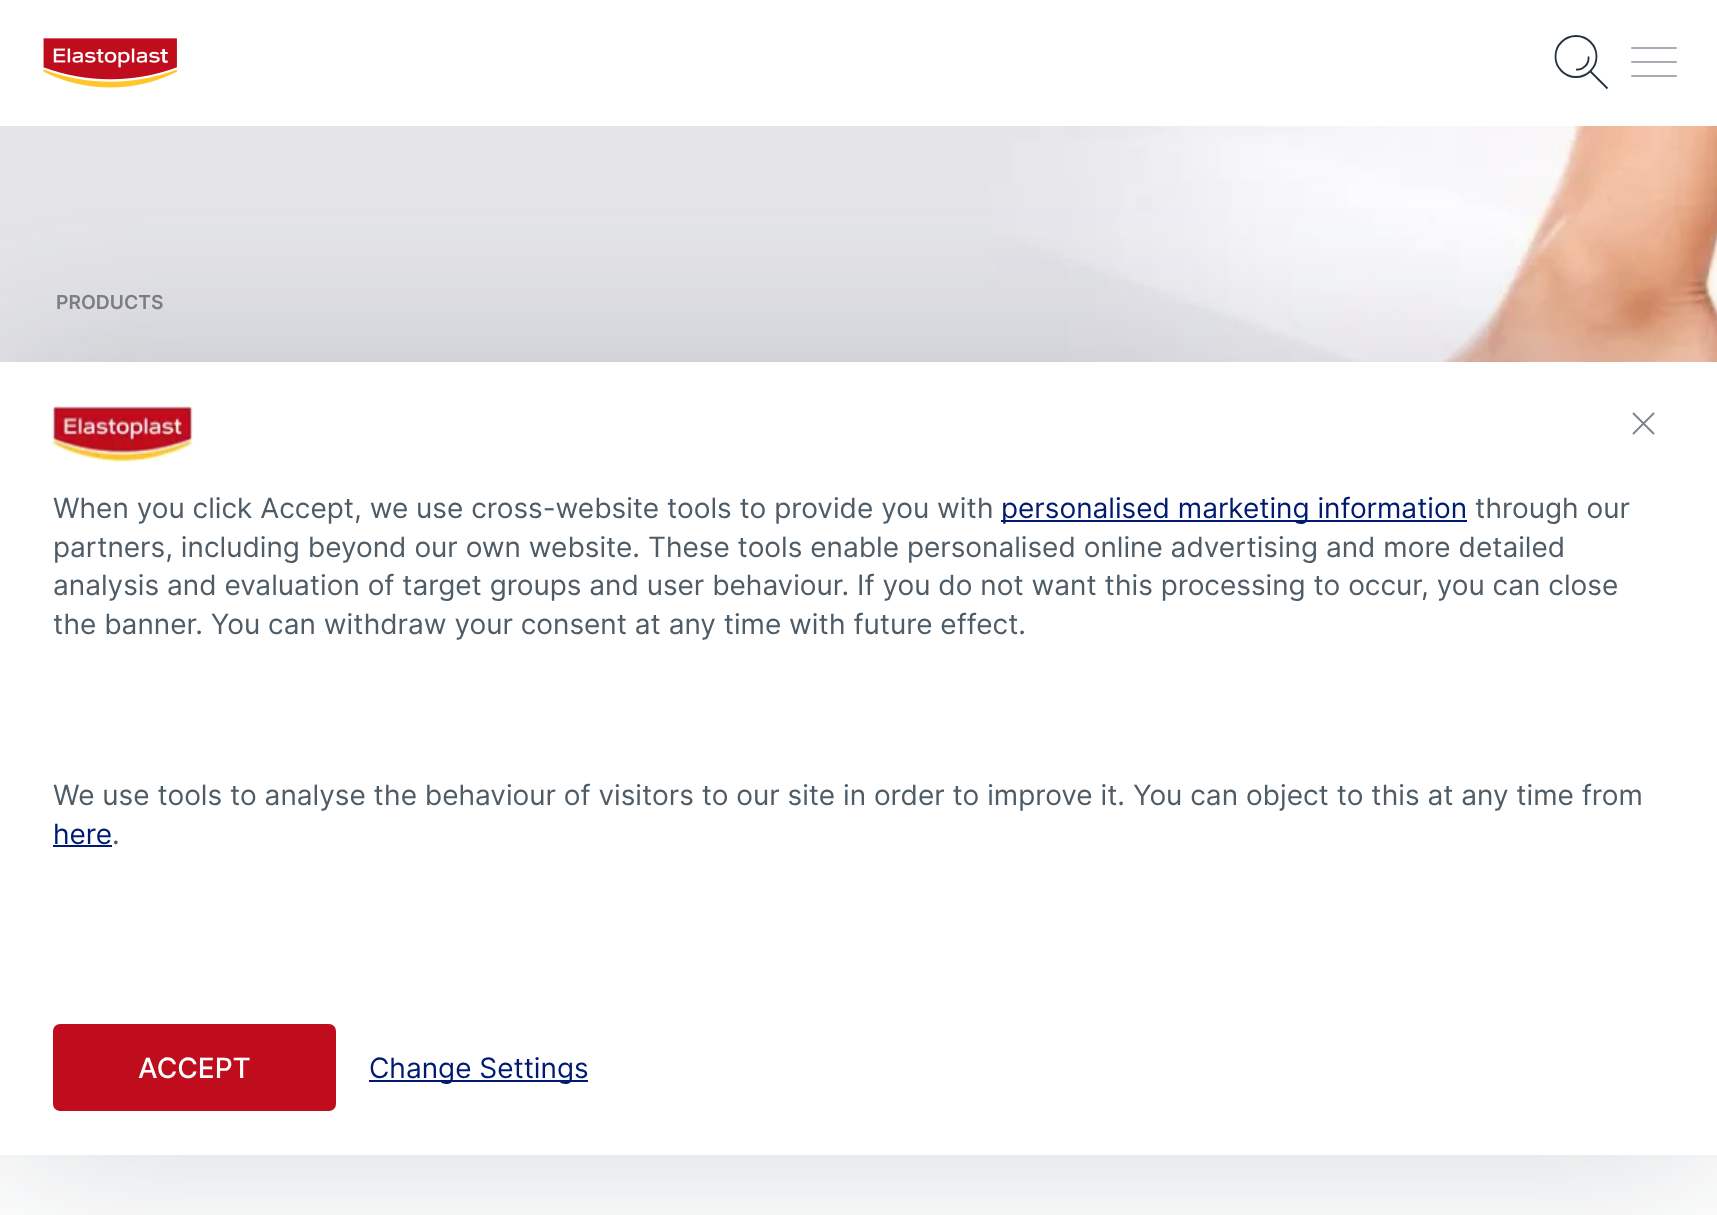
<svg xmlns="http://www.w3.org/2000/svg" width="1717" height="1215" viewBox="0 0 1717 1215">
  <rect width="100%" height="100%" fill="rgb(255,255,255)"/>
  <image x="43" y="38" width="134" height="50" href="pic1.png"/>
  <circle cx="1576" cy="56.5" r="20.5" fill="none" stroke="rgb(34,51,65)" stroke-width="1.8"/>
  <path d="M1590 71L1607.5 88.5M1588.5 56.5C1589.5 64 1583 70.5 1576 69.5" fill="none" stroke="rgb(34,51,65)" stroke-width="1.8"/>
  <rect x="1631" y="47" width="46" height="2" rx="1" fill="rgb(167,173,179)"/>
  <rect x="1631" y="61" width="46" height="2" rx="1" fill="rgb(167,173,179)"/>
  <rect x="1631" y="75" width="46" height="2" rx="1" fill="rgb(167,173,179)"/>
  <image x="0" y="126" width="1717" height="236" href="pic2.png"/>
  <text x="56" y="309" font-family="Inter" font-size="19.25" font-weight="600" fill="rgb(128,128,136)">PRODUCTS</text>
  <rect x="0" y="362" width="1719" height="793" fill="rgba(34,51,65,0.2)" filter="blur(87.5px)"/>
  <rect x="0" y="362" width="1717" height="793" fill="rgb(255,255,255)"/>
  <image x="52" y="406" width="141" height="57" href="pic3.png"/>
  <text x="53" y="518" font-family="Inter" font-size="28" fill="rgb(78,92,103)">When you click Accept, we use cross-website tools to provide you with</text>
  <rect x="1001" y="520" width="466" height="2" fill="rgb(0,26,114)"/>
  <text x="1001" y="518" font-family="Inter" font-size="28" fill="rgb(0,26,114)">personalised marketing information</text>
  <g font-family="Inter" font-size="28" fill="rgb(78,92,103)">
    <text x="1475" y="518">through our</text>
    <text>
      <tspan x="53" y="557">partners, including beyond our own website. These tools enable personalised online advertising and more detailed</tspan>
      <tspan x="53" y="595">analysis and evaluation of target groups and user behaviour. If you do not want this processing to occur, you can close</tspan>
      <tspan x="53" y="634">the banner. You can withdraw your consent at any time with future effect.</tspan>
    </text>
    <text x="53" y="805">We use tools to analyse the behaviour of visitors to our site in order to improve it. You can object to this at any time from</text>
  </g>
  <text x="53" y="844" font-family="Inter" font-size="28" fill="rgb(0,26,114)">here</text>
  <rect x="53" y="845" width="59" height="2" fill="rgb(0,26,114)"/>
  <text x="112" y="844" font-family="Inter" font-size="28" fill="rgb(78,92,103)">.</text>
  <path d="M1633 413L1654 434M1654 413L1633 434" fill="none" stroke="rgb(122,133,141)" stroke-width="1.9"/>
  <rect x="53" y="1024" width="283" height="87" rx="7" fill="rgb(192,13,30)"/>
  <text x="138" y="1078" font-family="Inter" font-size="28" font-weight="500" fill="rgb(255,255,255)">ACCEPT</text>
  <rect x="369" y="1080" width="219" height="2" fill="rgb(0,26,114)"/>
  <text x="369" y="1078" font-family="Inter" font-size="28" fill="rgb(0,26,114)">Change Settings</text>
</svg>
